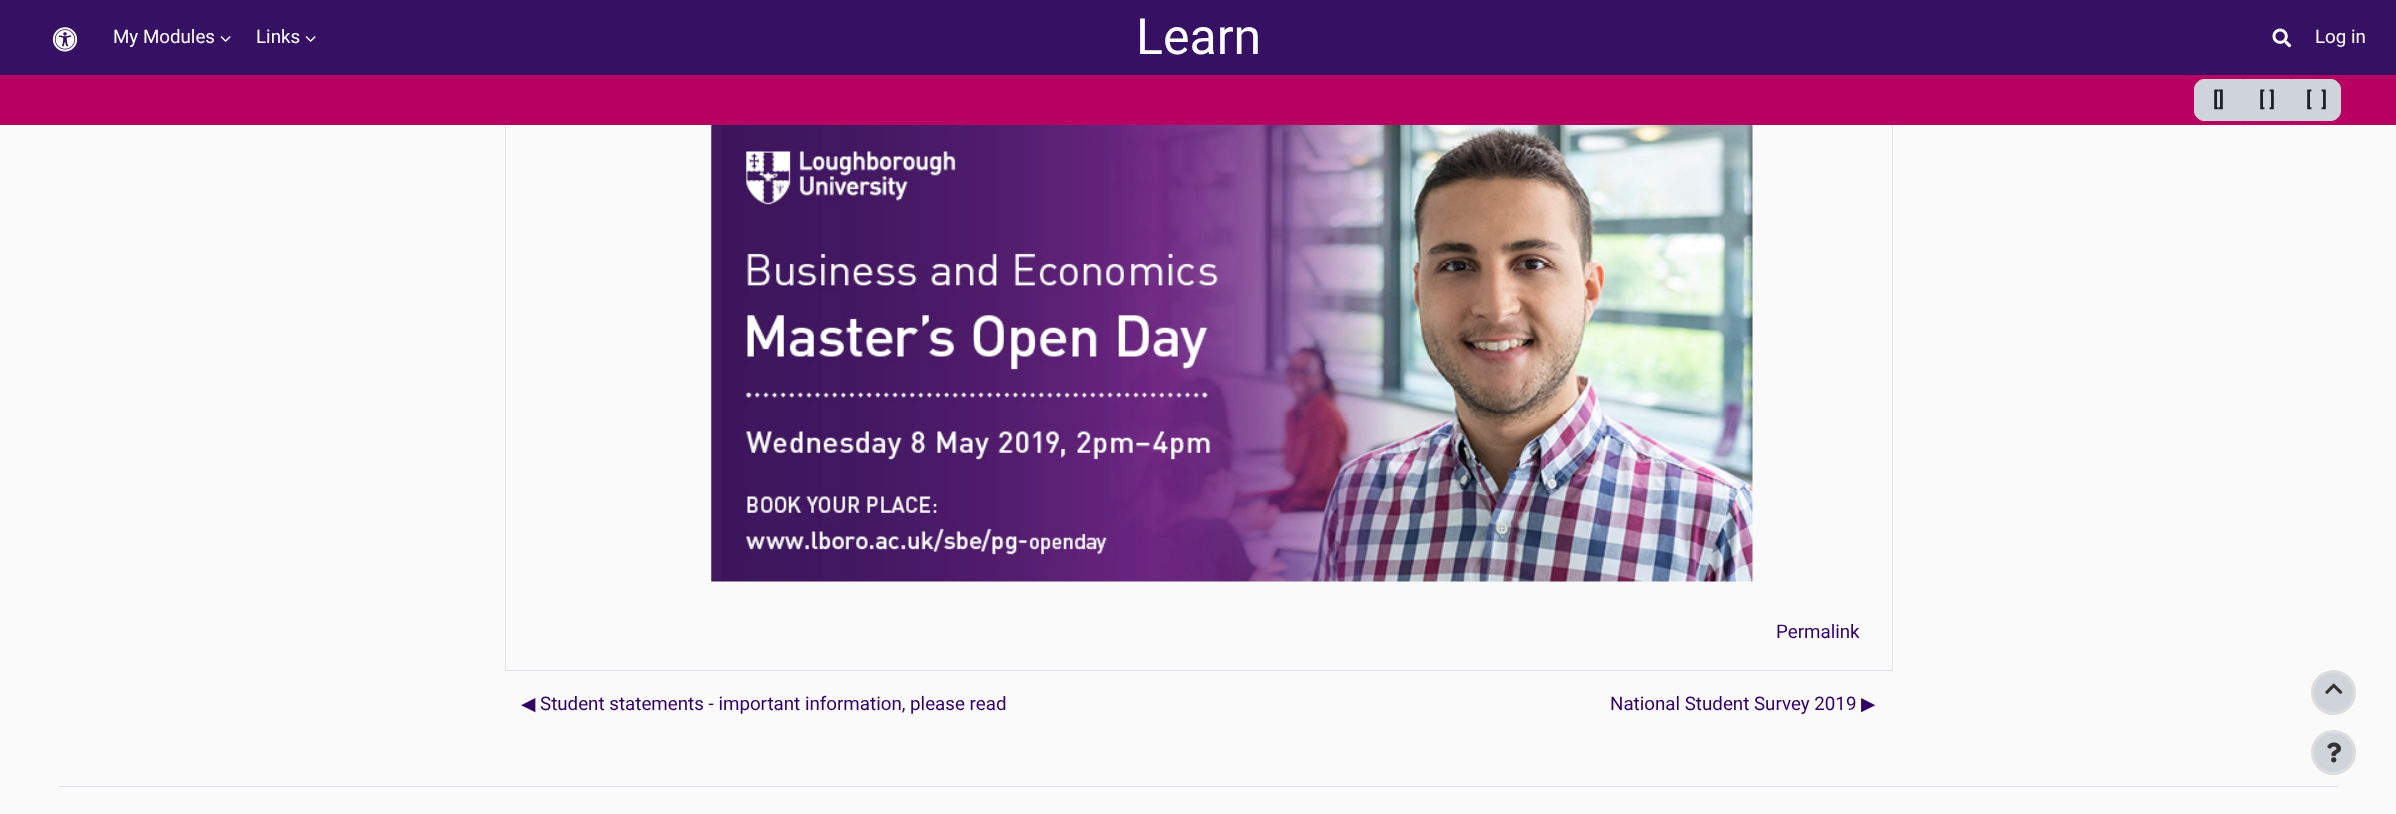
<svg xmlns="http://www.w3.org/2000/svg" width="2396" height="814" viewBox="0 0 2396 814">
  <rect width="100%" height="100%" fill="rgb(250,250,250)"/>
  <rect x="505.5" y="19.5" width="1387" height="651" fill="none" stroke="rgb(222,226,230)"/>
  <rect x="0" y="0" width="2396" height="75" fill="rgb(54,17,99)"/>
  <image x="52" y="27" width="26" height="25" href="pic1.png"/>
  <text x="113" y="43" font-family="Roboto" font-size="18.75" fill="rgb(255,255,255)">My Modules</text>
  <image x="220" y="36" width="11" height="6" href="pic2.png"/>
  <text x="256" y="43" font-family="Roboto" font-size="18.75" fill="rgb(255,255,255)">Links</text>
  <image x="305" y="36" width="11" height="6" href="pic2.png"/>
  <text x="1136" y="54" font-family="Roboto" font-size="50" fill="rgb(255,255,255)">Learn</text>
  <image x="2272" y="28" width="20" height="20" href="pic3.png"/>
  <text x="2315" y="43" font-family="Roboto" font-size="18.75" fill="rgb(255,255,255)">Log in</text>
  <rect x="0" y="75" width="2396" height="50" fill="rgb(183,0,98)"/>
  <path d="M2204 79.5H2243.5V120.5H2204C2199 120.5 2194.5 116 2194.5 111V89C2194.5 84 2199 79.5 2204 79.5Z" fill="rgb(206,212,218)" stroke="rgb(206,212,218)"/>
  <text x="2213" y="106" font-family="Roboto" font-size="20" font-weight="bold" fill="rgb(29,33,37)">[]</text>
  <rect x="2244" y="79" width="47" height="42" fill="rgb(206,212,218)"/>
  <text x="2259" y="106" font-family="Roboto" font-size="20" font-weight="bold" fill="rgb(29,33,37)">[ ]</text>
  <path d="M2291.5 79.5H2331C2336 79.5 2340.5 84 2340.5 89V111C2340.5 116 2336 120.5 2331 120.5H2291.5Z" fill="rgb(206,212,218)" stroke="rgb(206,212,218)"/>
  <text x="2306" y="106" font-family="Roboto" font-size="20" font-weight="bold" fill="rgb(29,33,37)" xml:space="preserve">[  ]</text>
  <image x="711" y="125" width="1042" height="457" href="pic4.png"/>
  <text x="1776" y="638" font-family="Roboto" font-size="18.75" fill="rgb(51,0,102)">Permalink</text>
  <text x="521" y="710" font-family="DejaVu Sans" font-size="18.75" fill="rgb(51,0,102)">◀︎</text>
  <g font-family="Roboto" font-size="18.75" fill="rgb(51,0,102)">
    <text x="540" y="710">Student statements - important information, please read</text>
    <text x="1610" y="710">National Student Survey 2019</text>
  </g>
  <text x="1861" y="710" font-family="DejaVu Sans" font-size="18.75" fill="rgb(51,0,102)">▶︎</text>
  <circle cx="2333.5" cy="692.5" r="21" fill="rgb(206,212,218)" stroke="rgb(221,221,221)" stroke-width="3"/>
  <image x="2325" y="683" width="18" height="11" href="pic5.png"/>
  <circle cx="2333.5" cy="752.5" r="21" fill="rgb(206,212,218)" stroke="rgb(221,221,221)" stroke-width="3"/>
  <image x="2327" y="742" width="14" height="21" href="pic6.png"/>
  <rect x="59" y="786" width="2279" height="1" fill="rgb(222,226,230)"/>
</svg>
